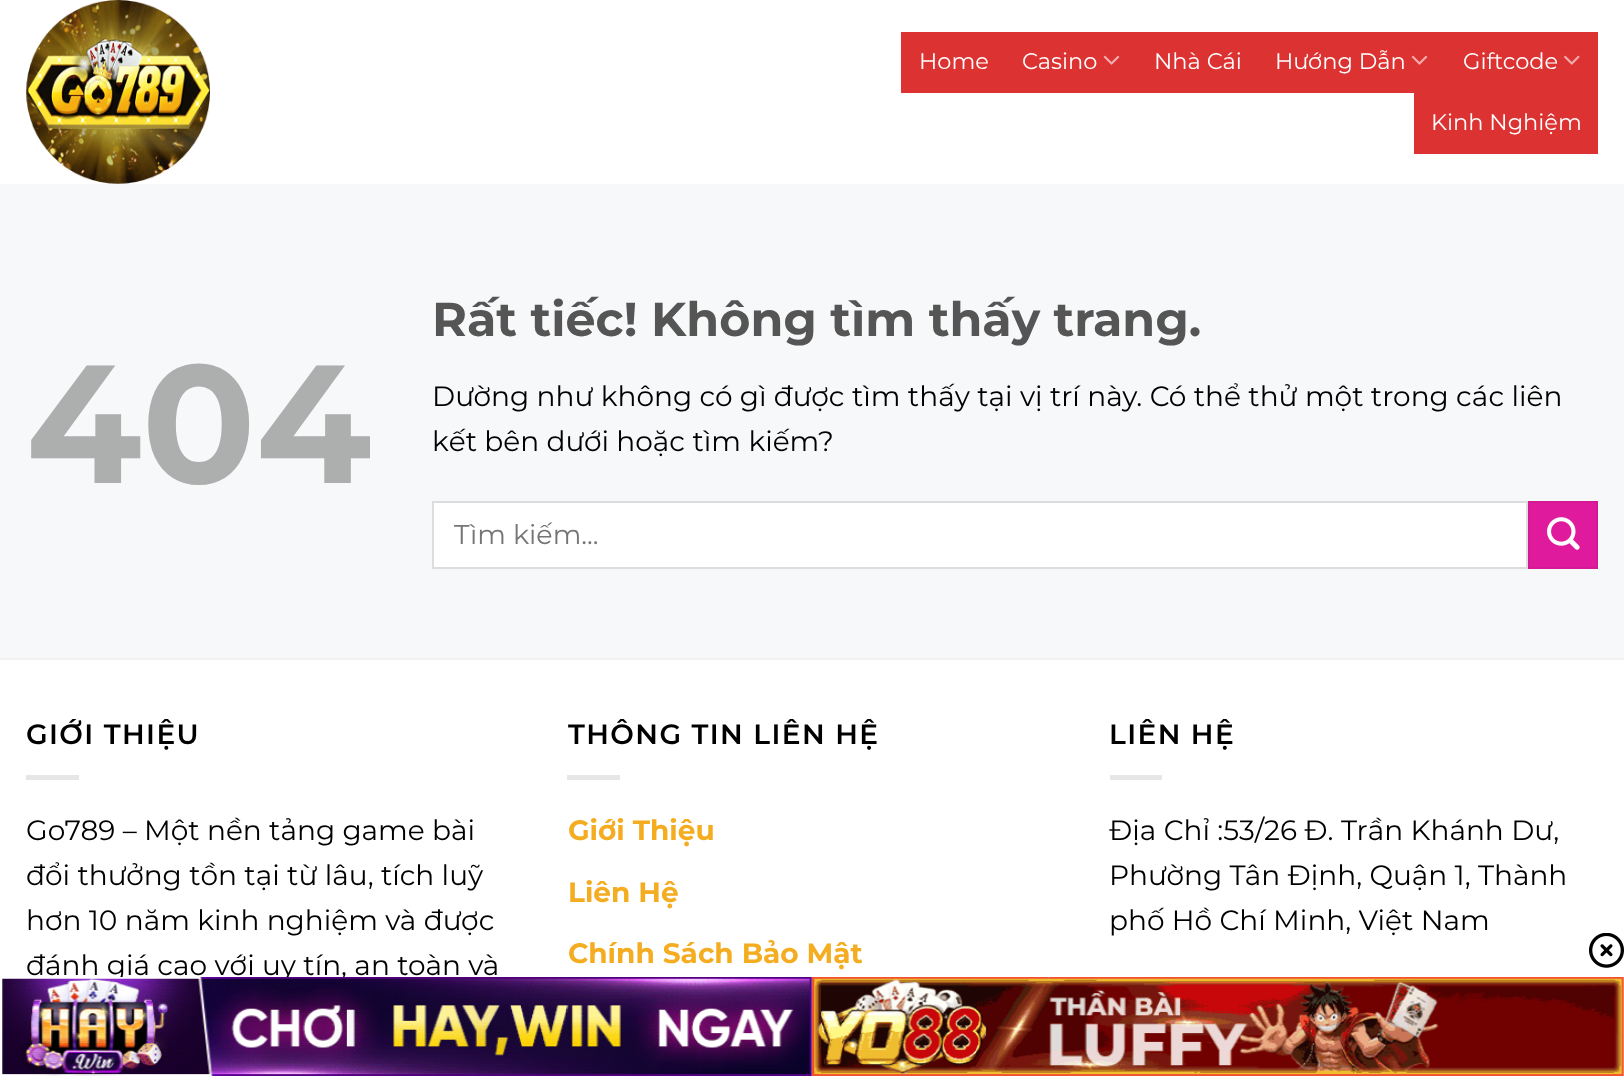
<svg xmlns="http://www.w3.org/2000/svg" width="1624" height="1079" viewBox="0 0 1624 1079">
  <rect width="100%" height="100%" fill="rgb(247,248,249)"/>
  <rect x="0" y="0" width="1624" height="184" fill="rgb(255,255,255)"/>
  <image x="26" y="0" width="184" height="184" href="pic1.png"/>
  <rect x="901" y="32" width="697" height="61" fill="rgb(220,50,50)"/>
  <g font-family="Montserrat" font-size="22.5" fill="rgb(255,255,255)">
    <text x="919" y="69">Home</text>
    <text x="1022" y="69">Casino</text>
  </g>
  <image x="1103" y="55" width="17" height="10" href="pic2.png"/>
  <g font-family="Montserrat" font-size="22.5" fill="rgb(255,255,255)">
    <text x="1154" y="69">Nhà Cái</text>
    <text x="1275" y="69">Hướng Dẫn</text>
  </g>
  <image x="1411" y="55" width="17" height="10" href="pic2.png"/>
  <text x="1463" y="69" font-family="Montserrat" font-size="22.5" fill="rgb(255,255,255)">Giftcode</text>
  <image x="1564" y="55" width="16" height="10" href="pic3.png"/>
  <rect x="1414" y="93" width="184" height="61" fill="rgb(220,50,50)"/>
  <text x="1431" y="130" font-family="Montserrat" font-size="22.5" fill="rgb(255,255,255)">Kinh Nghiệm</text>
  <text x="26" y="483" font-family="Montserrat" font-size="168" font-weight="bold" fill="rgb(173,174,174)">404</text>
  <text x="432" y="336" font-family="Montserrat" font-size="47.6" font-weight="bold" fill="rgb(85,85,85)">Rất tiếc! Không tìm thấy trang.</text>
  <g font-family="Montserrat" font-size="28" fill="rgb(0,0,0)">
    <text>
      <tspan x="432" y="406">Dường như không có gì được tìm thấy tại vị trí này. Có thể thử một trong các liên</tspan>
      <tspan x="432" y="451">kết bên dưới hoặc tìm kiếm?</tspan>
    </text>
  </g>
  <rect x="433" y="502" width="1094" height="66" fill="rgb(255,255,255)" stroke="rgb(221,221,221)" stroke-width="2"/>
  <text x="454" y="544" font-family="Montserrat" font-size="27" fill="rgb(117,117,117)">Tìm kiếm...</text>
  <rect x="1529" y="502" width="68" height="66" fill="rgb(223,26,157)" stroke="rgb(212,25,149)" stroke-width="2"/>
  <image x="1547" y="517" width="33" height="33" href="pic4.png"/>
  <rect x="0" y="660" width="1624" height="419" fill="rgb(255,255,255)"/>
  <rect x="0" y="658" width="1624" height="2" fill="rgb(242,242,242)"/>
  <text x="26" y="744" font-family="Montserrat" font-size="28" font-weight="600" letter-spacing="1.4" fill="rgb(0,0,0)">GIỚI THIỆU</text>
  <rect x="26" y="775" width="53" height="5" fill="rgb(230,230,230)"/>
  <g font-family="Montserrat" font-size="28" fill="rgb(0,0,0)">
    <text>
      <tspan x="26" y="840">Go789 – Một nền tảng game bài</tspan>
      <tspan x="26" y="885">đổi thưởng tồn tại từ lâu, tích luỹ</tspan>
      <tspan x="26" y="930">hơn 10 năm kinh nghiệm và được</tspan>
      <tspan x="26" y="975">đánh giá cao với uy tín, an toàn và</tspan>
    </text>
  </g>
  <text x="568" y="744" font-family="Montserrat" font-size="28" font-weight="600" letter-spacing="1.4" fill="rgb(0,0,0)">THÔNG TIN LIÊN HỆ</text>
  <rect x="567" y="775" width="53" height="5" fill="rgb(230,230,230)"/>
  <g font-family="Montserrat" font-size="28" font-weight="bold" fill="rgb(244,172,32)">
    <text x="568" y="840">Giới Thiệu</text>
    <text x="568" y="902">Liên Hệ</text>
    <text x="568" y="963">Chính Sách Bảo Mật</text>
  </g>
  <text x="1109" y="744" font-family="Montserrat" font-size="28" font-weight="600" letter-spacing="1.4" fill="rgb(0,0,0)">LIÊN HỆ</text>
  <rect x="1110" y="775" width="52" height="5" fill="rgb(230,230,230)"/>
  <g font-family="Montserrat" font-size="28" fill="rgb(0,0,0)">
    <text>
      <tspan x="1109" y="840">Địa Chỉ :53/26 Đ. Trần Khánh Dư,</tspan>
      <tspan x="1109" y="885">Phường Tân Định, Quận 1, Thành</tspan>
      <tspan x="1109" y="930">phố Hồ Chí Minh, Việt Nam</tspan>
    </text>
  </g>
  <image x="1589" y="933" width="35" height="35" href="pic5.png"/>
  <image x="2" y="977" width="810" height="99" href="pic6.png"/>
  <image x="812" y="977" width="812" height="99" href="pic7.png"/>
</svg>
